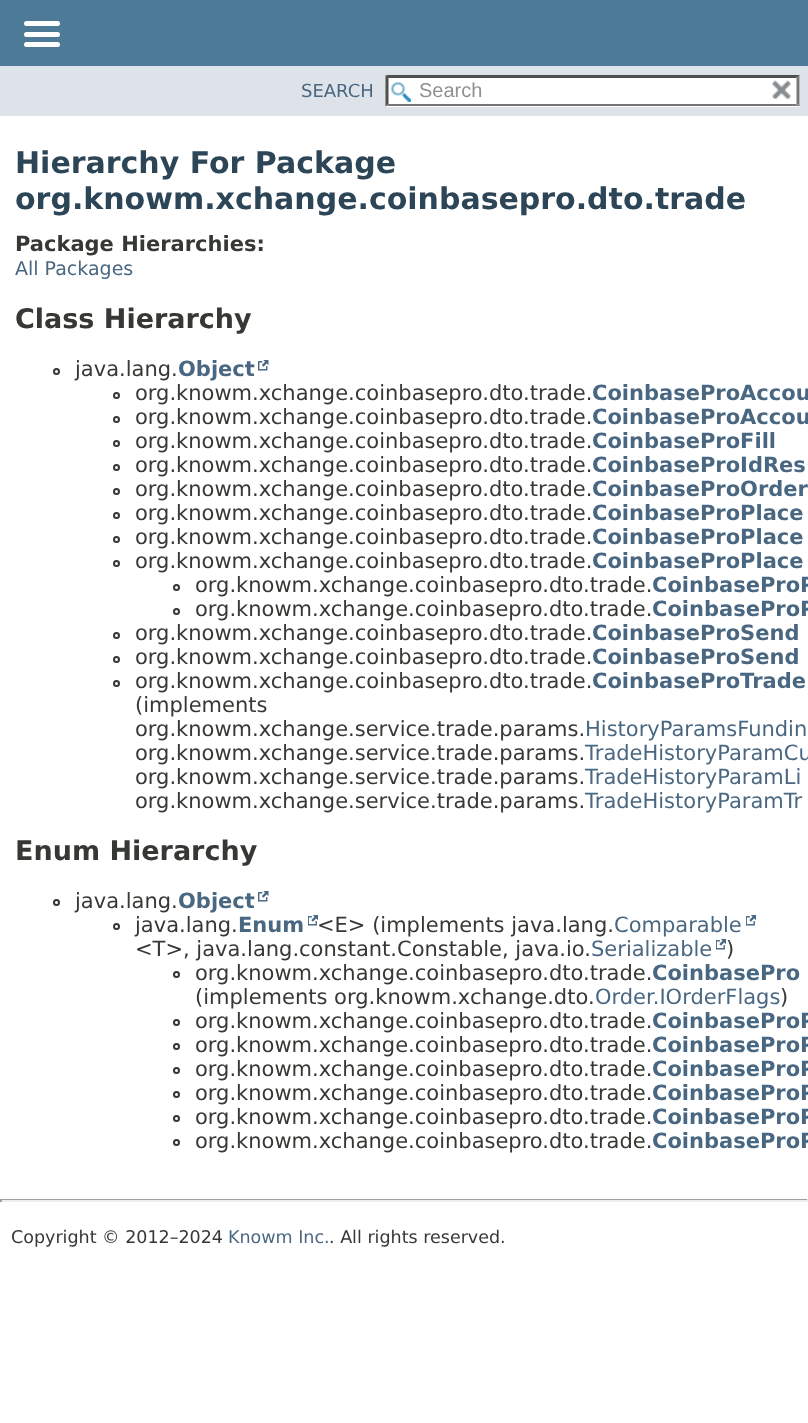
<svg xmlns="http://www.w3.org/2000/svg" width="808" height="1423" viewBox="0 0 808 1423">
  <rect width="100%" height="100%" fill="rgb(255,255,255)"/>
  <rect x="0" y="0" width="808" height="66" fill="rgb(77,122,151)"/>
  <rect x="24" y="21" width="36" height="5" rx="2.5" fill="rgb(255,255,255)"/>
  <rect x="24" y="32" width="36" height="5" rx="2.5" fill="rgb(255,255,255)"/>
  <rect x="24" y="42" width="36" height="5" rx="2.5" fill="rgb(255,255,255)"/>
  <rect x="0" y="66" width="808" height="50" fill="rgb(222,227,233)"/>
  <text x="301" y="97" font-family="DejaVu Sans" font-size="18" fill="rgb(74,103,130)">SEARCH</text>
  <rect x="386" y="75" width="414" height="32" fill="rgb(255,255,255)"/>
  <image x="391" y="82" width="20" height="20" href="pic1.png"/>
  <path d="M386 75H800L796 78H388Z" fill="rgb(79,79,79)"/>
  <path d="M799.5 75V106.5L796.5 103.5V78Z" fill="rgb(118,118,118)"/>
  <path d="M800 106H386L388 104H796Z" fill="rgb(118,118,118)"/>
  <path d="M385.5 106.5V75L388.5 78V103.5Z" fill="rgb(79,79,79)"/>
  <text x="419" y="97" font-family="Liberation Sans" font-size="20" fill="rgb(144,144,144)">Search</text>
  <image x="772" y="80" width="19" height="19" href="pic2.png"/>
  <g font-family="DejaVu Sans" font-size="30" font-weight="bold" fill="rgb(44,69,87)">
    <text>
      <tspan x="15" y="173">Hierarchy For Package</tspan>
      <tspan x="15" y="209">org.knowm.xchange.coinbasepro.dto.trade</tspan>
    </text>
  </g>
  <text x="15" y="251" font-family="DejaVu Sans" font-size="21" font-weight="bold" fill="rgb(53,56,51)">Package Hierarchies:</text>
  <text x="15" y="275" font-family="DejaVu Sans" font-size="19" fill="rgb(74,103,130)">All Packages</text>
  <text x="15" y="328" font-family="DejaVu Sans" font-size="27" font-weight="bold" fill="rgb(53,56,51)">Class Hierarchy</text>
  <circle cx="56.5" cy="371.5" r="2.5" fill="none" stroke="rgb(53,56,51)" stroke-width="2"/>
  <text x="75" y="376" font-family="DejaVu Sans" font-size="21" fill="rgb(53,56,51)">java.lang.</text>
  <text x="178" y="376" font-family="DejaVu Sans" font-size="21" font-weight="bold" fill="rgb(74,103,130)">Object</text>
  <image x="258" y="360" width="11" height="11" href="pic3.png"/>
  <circle cx="116.5" cy="395.5" r="2.5" fill="none" stroke="rgb(53,56,51)" stroke-width="2"/>
  <text x="135" y="400" font-family="DejaVu Sans" font-size="21" fill="rgb(53,56,51)">org.knowm.xchange.coinbasepro.dto.trade.</text>
  <text x="592" y="400" font-family="DejaVu Sans" font-size="21" font-weight="bold" fill="rgb(74,103,130)">CoinbaseProAccou</text>
  <circle cx="116.5" cy="419.5" r="2.5" fill="none" stroke="rgb(53,56,51)" stroke-width="2"/>
  <text x="135" y="424" font-family="DejaVu Sans" font-size="21" fill="rgb(53,56,51)">org.knowm.xchange.coinbasepro.dto.trade.</text>
  <text x="592" y="424" font-family="DejaVu Sans" font-size="21" font-weight="bold" fill="rgb(74,103,130)">CoinbaseProAccou</text>
  <circle cx="116.5" cy="443.5" r="2.5" fill="none" stroke="rgb(53,56,51)" stroke-width="2"/>
  <text x="135" y="448" font-family="DejaVu Sans" font-size="21" fill="rgb(53,56,51)">org.knowm.xchange.coinbasepro.dto.trade.</text>
  <text x="592" y="448" font-family="DejaVu Sans" font-size="21" font-weight="bold" fill="rgb(74,103,130)">CoinbaseProFill</text>
  <circle cx="116.5" cy="467.5" r="2.5" fill="none" stroke="rgb(53,56,51)" stroke-width="2"/>
  <text x="135" y="472" font-family="DejaVu Sans" font-size="21" fill="rgb(53,56,51)">org.knowm.xchange.coinbasepro.dto.trade.</text>
  <text x="592" y="472" font-family="DejaVu Sans" font-size="21" font-weight="bold" fill="rgb(74,103,130)">CoinbaseProIdRes</text>
  <circle cx="116.5" cy="491.5" r="2.5" fill="none" stroke="rgb(53,56,51)" stroke-width="2"/>
  <text x="135" y="496" font-family="DejaVu Sans" font-size="21" fill="rgb(53,56,51)">org.knowm.xchange.coinbasepro.dto.trade.</text>
  <text x="592" y="496" font-family="DejaVu Sans" font-size="21" font-weight="bold" fill="rgb(74,103,130)">CoinbaseProOrder</text>
  <circle cx="116.5" cy="515.5" r="2.5" fill="none" stroke="rgb(53,56,51)" stroke-width="2"/>
  <text x="135" y="520" font-family="DejaVu Sans" font-size="21" fill="rgb(53,56,51)">org.knowm.xchange.coinbasepro.dto.trade.</text>
  <text x="592" y="520" font-family="DejaVu Sans" font-size="21" font-weight="bold" fill="rgb(74,103,130)">CoinbaseProPlace</text>
  <circle cx="116.5" cy="539.5" r="2.5" fill="none" stroke="rgb(53,56,51)" stroke-width="2"/>
  <text x="135" y="544" font-family="DejaVu Sans" font-size="21" fill="rgb(53,56,51)">org.knowm.xchange.coinbasepro.dto.trade.</text>
  <text x="592" y="544" font-family="DejaVu Sans" font-size="21" font-weight="bold" fill="rgb(74,103,130)">CoinbaseProPlace</text>
  <circle cx="116.5" cy="563.5" r="2.5" fill="none" stroke="rgb(53,56,51)" stroke-width="2"/>
  <text x="135" y="568" font-family="DejaVu Sans" font-size="21" fill="rgb(53,56,51)">org.knowm.xchange.coinbasepro.dto.trade.</text>
  <text x="592" y="568" font-family="DejaVu Sans" font-size="21" font-weight="bold" fill="rgb(74,103,130)">CoinbaseProPlace</text>
  <circle cx="176.5" cy="587.5" r="2.5" fill="none" stroke="rgb(53,56,51)" stroke-width="2"/>
  <text x="195" y="592" font-family="DejaVu Sans" font-size="21" fill="rgb(53,56,51)">org.knowm.xchange.coinbasepro.dto.trade.</text>
  <text x="652" y="592" font-family="DejaVu Sans" font-size="21" font-weight="bold" fill="rgb(74,103,130)">CoinbaseProP</text>
  <circle cx="176.5" cy="611.5" r="2.5" fill="none" stroke="rgb(53,56,51)" stroke-width="2"/>
  <text x="195" y="616" font-family="DejaVu Sans" font-size="21" fill="rgb(53,56,51)">org.knowm.xchange.coinbasepro.dto.trade.</text>
  <text x="652" y="616" font-family="DejaVu Sans" font-size="21" font-weight="bold" fill="rgb(74,103,130)">CoinbaseProP</text>
  <circle cx="116.5" cy="635.5" r="2.5" fill="none" stroke="rgb(53,56,51)" stroke-width="2"/>
  <text x="135" y="640" font-family="DejaVu Sans" font-size="21" fill="rgb(53,56,51)">org.knowm.xchange.coinbasepro.dto.trade.</text>
  <text x="592" y="640" font-family="DejaVu Sans" font-size="21" font-weight="bold" fill="rgb(74,103,130)">CoinbaseProSend</text>
  <circle cx="116.5" cy="659.5" r="2.5" fill="none" stroke="rgb(53,56,51)" stroke-width="2"/>
  <text x="135" y="664" font-family="DejaVu Sans" font-size="21" fill="rgb(53,56,51)">org.knowm.xchange.coinbasepro.dto.trade.</text>
  <text x="592" y="664" font-family="DejaVu Sans" font-size="21" font-weight="bold" fill="rgb(74,103,130)">CoinbaseProSend</text>
  <circle cx="116.5" cy="683.5" r="2.5" fill="none" stroke="rgb(53,56,51)" stroke-width="2"/>
  <text x="135" y="688" font-family="DejaVu Sans" font-size="21" fill="rgb(53,56,51)">org.knowm.xchange.coinbasepro.dto.trade.</text>
  <text x="592" y="688" font-family="DejaVu Sans" font-size="21" font-weight="bold" fill="rgb(74,103,130)">CoinbaseProTrade</text>
  <g font-family="DejaVu Sans" font-size="21" fill="rgb(53,56,51)">
    <text>
      <tspan x="135" y="712">(implements</tspan>
      <tspan x="135" y="736">org.knowm.xchange.service.trade.params.</tspan>
    </text>
  </g>
  <text x="585" y="736" font-family="DejaVu Sans" font-size="21" fill="rgb(74,103,130)">HistoryParamsFundin</text>
  <text x="135" y="760" font-family="DejaVu Sans" font-size="21" fill="rgb(53,56,51)">org.knowm.xchange.service.trade.params.</text>
  <text x="585" y="760" font-family="DejaVu Sans" font-size="21" fill="rgb(74,103,130)">TradeHistoryParamCu</text>
  <text x="135" y="784" font-family="DejaVu Sans" font-size="21" fill="rgb(53,56,51)">org.knowm.xchange.service.trade.params.</text>
  <text x="585" y="784" font-family="DejaVu Sans" font-size="21" fill="rgb(74,103,130)">TradeHistoryParamLi</text>
  <text x="135" y="808" font-family="DejaVu Sans" font-size="21" fill="rgb(53,56,51)">org.knowm.xchange.service.trade.params.</text>
  <text x="585" y="808" font-family="DejaVu Sans" font-size="21" fill="rgb(74,103,130)">TradeHistoryParamTr</text>
  <text x="15" y="860" font-family="DejaVu Sans" font-size="27" font-weight="bold" fill="rgb(53,56,51)">Enum Hierarchy</text>
  <circle cx="56.5" cy="902.5" r="2.5" fill="none" stroke="rgb(53,56,51)" stroke-width="2"/>
  <text x="75" y="908" font-family="DejaVu Sans" font-size="21" fill="rgb(53,56,51)">java.lang.</text>
  <text x="178" y="908" font-family="DejaVu Sans" font-size="21" font-weight="bold" fill="rgb(74,103,130)">Object</text>
  <image x="258" y="891" width="11" height="11" href="pic3.png"/>
  <circle cx="116.5" cy="926.5" r="2.5" fill="none" stroke="rgb(53,56,51)" stroke-width="2"/>
  <text x="135" y="932" font-family="DejaVu Sans" font-size="21" fill="rgb(53,56,51)">java.lang.</text>
  <text x="238" y="932" font-family="DejaVu Sans" font-size="21" font-weight="bold" fill="rgb(74,103,130)">Enum</text>
  <image x="308" y="915" width="10" height="11" href="pic4.png"/>
  <text x="317" y="932" font-family="DejaVu Sans" font-size="21" fill="rgb(53,56,51)">&lt;E&gt; (implements java.lang.</text>
  <text x="614" y="932" font-family="DejaVu Sans" font-size="21" fill="rgb(74,103,130)">Comparable</text>
  <image x="746" y="915" width="10" height="11" href="pic4.png"/>
  <text x="135" y="956" font-family="DejaVu Sans" font-size="21" fill="rgb(53,56,51)">&lt;T&gt;, java.lang.constant.Constable, java.io.</text>
  <text x="591" y="956" font-family="DejaVu Sans" font-size="21" fill="rgb(74,103,130)">Serializable</text>
  <image x="716" y="939" width="10" height="11" href="pic4.png"/>
  <text x="726" y="956" font-family="DejaVu Sans" font-size="21" fill="rgb(53,56,51)">)</text>
  <circle cx="176.5" cy="974.5" r="2.5" fill="none" stroke="rgb(53,56,51)" stroke-width="2"/>
  <text x="195" y="980" font-family="DejaVu Sans" font-size="21" fill="rgb(53,56,51)">org.knowm.xchange.coinbasepro.dto.trade.</text>
  <text x="652" y="980" font-family="DejaVu Sans" font-size="21" font-weight="bold" fill="rgb(74,103,130)">CoinbasePro</text>
  <text x="195" y="1004" font-family="DejaVu Sans" font-size="21" fill="rgb(53,56,51)">(implements org.knowm.xchange.dto.</text>
  <text x="595" y="1004" font-family="DejaVu Sans" font-size="21" fill="rgb(74,103,130)">Order.IOrderFlags</text>
  <text x="780" y="1004" font-family="DejaVu Sans" font-size="21" fill="rgb(53,56,51)">)</text>
  <circle cx="176.5" cy="1022.5" r="2.5" fill="none" stroke="rgb(53,56,51)" stroke-width="2"/>
  <text x="195" y="1028" font-family="DejaVu Sans" font-size="21" fill="rgb(53,56,51)">org.knowm.xchange.coinbasepro.dto.trade.</text>
  <text x="652" y="1028" font-family="DejaVu Sans" font-size="21" font-weight="bold" fill="rgb(74,103,130)">CoinbaseProP</text>
  <circle cx="176.5" cy="1046.5" r="2.5" fill="none" stroke="rgb(53,56,51)" stroke-width="2"/>
  <text x="195" y="1052" font-family="DejaVu Sans" font-size="21" fill="rgb(53,56,51)">org.knowm.xchange.coinbasepro.dto.trade.</text>
  <text x="652" y="1052" font-family="DejaVu Sans" font-size="21" font-weight="bold" fill="rgb(74,103,130)">CoinbaseProP</text>
  <circle cx="176.5" cy="1070.5" r="2.5" fill="none" stroke="rgb(53,56,51)" stroke-width="2"/>
  <text x="195" y="1076" font-family="DejaVu Sans" font-size="21" fill="rgb(53,56,51)">org.knowm.xchange.coinbasepro.dto.trade.</text>
  <text x="652" y="1076" font-family="DejaVu Sans" font-size="21" font-weight="bold" fill="rgb(74,103,130)">CoinbaseProP</text>
  <circle cx="176.5" cy="1094.5" r="2.5" fill="none" stroke="rgb(53,56,51)" stroke-width="2"/>
  <text x="195" y="1100" font-family="DejaVu Sans" font-size="21" fill="rgb(53,56,51)">org.knowm.xchange.coinbasepro.dto.trade.</text>
  <text x="652" y="1100" font-family="DejaVu Sans" font-size="21" font-weight="bold" fill="rgb(74,103,130)">CoinbaseProP</text>
  <circle cx="176.5" cy="1118.5" r="2.5" fill="none" stroke="rgb(53,56,51)" stroke-width="2"/>
  <text x="195" y="1124" font-family="DejaVu Sans" font-size="21" fill="rgb(53,56,51)">org.knowm.xchange.coinbasepro.dto.trade.</text>
  <text x="652" y="1124" font-family="DejaVu Sans" font-size="21" font-weight="bold" fill="rgb(74,103,130)">CoinbaseProP</text>
  <circle cx="176.5" cy="1142.5" r="2.5" fill="none" stroke="rgb(53,56,51)" stroke-width="2"/>
  <text x="195" y="1148" font-family="DejaVu Sans" font-size="21" fill="rgb(53,56,51)">org.knowm.xchange.coinbasepro.dto.trade.</text>
  <text x="652" y="1148" font-family="DejaVu Sans" font-size="21" font-weight="bold" fill="rgb(74,103,130)">CoinbaseProP</text>
  <rect x="0" y="1199" width="808" height="1" fill="rgb(159,159,159)"/>
  <rect x="807" y="1199" width="1" height="3" fill="rgb(238,238,238)"/>
  <rect x="0" y="1200" width="808" height="2" fill="rgb(238,238,238)"/>
  <rect x="0" y="1199" width="2" height="3" fill="rgb(159,159,159)"/>
  <text x="11" y="1243" font-family="DejaVu Sans" font-size="17.5" fill="rgb(53,56,51)">Copyright © 2012–2024</text>
  <text x="228" y="1243" font-family="DejaVu Sans" font-size="17.5" fill="rgb(74,103,130)">Knowm Inc.</text>
  <text x="329" y="1243" font-family="DejaVu Sans" font-size="17.5" fill="rgb(53,56,51)">. All rights reserved.</text>
</svg>
